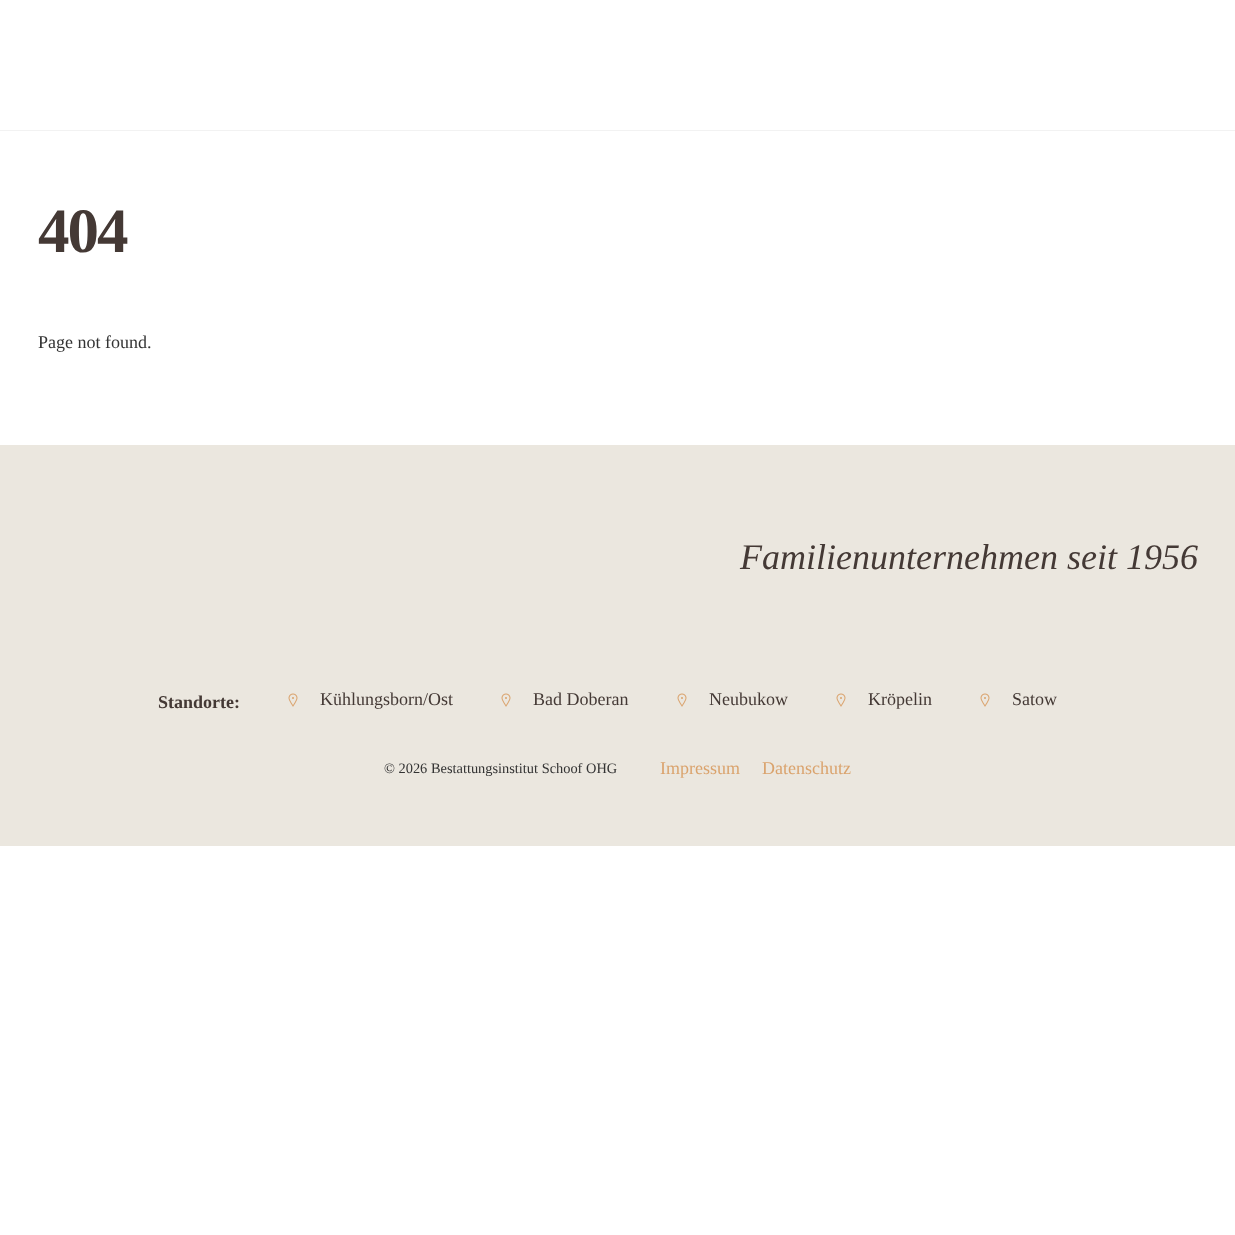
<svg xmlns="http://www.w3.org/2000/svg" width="1235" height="1235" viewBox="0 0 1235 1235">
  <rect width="100%" height="100%" fill="rgb(255,255,255)"/>
  <rect x="0" y="130" width="1235" height="1" fill="rgb(242,242,242)"/>
  <text x="38" y="252" font-family="Liberation Serif" font-size="63" font-weight="bold" letter-spacing="-2" fill="rgb(68,57,53)">404</text>
  <text x="38" y="348" font-family="Liberation Serif" font-size="18" fill="rgb(51,51,51)">Page not found.</text>
  <rect x="0" y="445" width="1235" height="401" fill="rgb(235,231,223)"/>
  <text x="740" y="569" font-family="Liberation Serif" font-size="36" font-style="italic" fill="rgb(68,57,53)">Familienunternehmen seit 1956</text>
  <text x="158" y="708" font-family="Liberation Serif" font-size="18" font-weight="bold" fill="rgb(68,57,53)">Standorte:</text>
  <image x="288" y="693" width="10" height="14" href="pic1.png"/>
  <text x="320" y="705" font-family="Liberation Serif" font-size="18" fill="rgb(68,57,53)">Kühlungsborn/Ost</text>
  <image x="501" y="693" width="10" height="14" href="pic1.png"/>
  <text x="533" y="705" font-family="Liberation Serif" font-size="18" fill="rgb(68,57,53)">Bad Doberan</text>
  <image x="677" y="693" width="10" height="14" href="pic1.png"/>
  <text x="709" y="705" font-family="Liberation Serif" font-size="18" fill="rgb(68,57,53)">Neubukow</text>
  <image x="836" y="693" width="10" height="14" href="pic1.png"/>
  <text x="868" y="705" font-family="Liberation Serif" font-size="18" fill="rgb(68,57,53)">Kröpelin</text>
  <image x="980" y="693" width="10" height="14" href="pic1.png"/>
  <text x="1012" y="705" font-family="Liberation Serif" font-size="18" fill="rgb(68,57,53)">Satow</text>
  <text x="384" y="773" font-family="Liberation Serif" font-size="14.4" fill="rgb(51,51,51)">© 2026 Bestattungsinstitut Schoof OHG</text>
  <g font-family="Liberation Serif" font-size="18" fill="rgb(218,163,109)">
    <text x="660" y="774">Impressum</text>
    <text x="762" y="774">Datenschutz</text>
  </g>
</svg>
